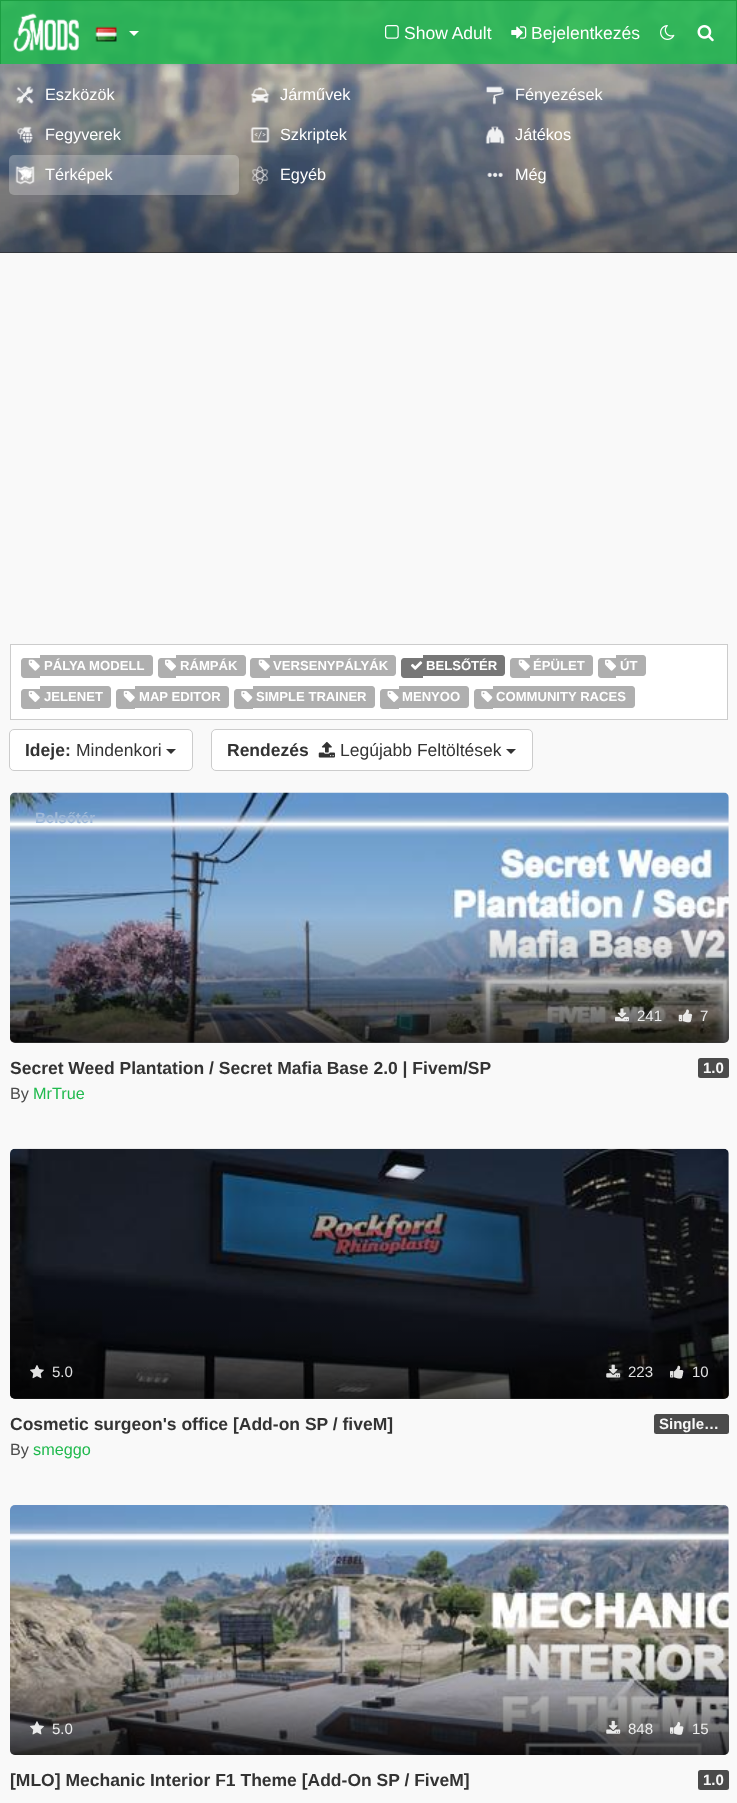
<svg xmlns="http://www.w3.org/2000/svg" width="737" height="1803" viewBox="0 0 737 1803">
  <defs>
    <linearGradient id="g1" gradientUnits="userSpaceOnUse" x1="369" y1="793" x2="369" y2="1043"><stop offset="0.5" stop-color="rgb(0,0,0)" stop-opacity="0"/><stop offset="0.75" stop-color="rgb(0,0,0)" stop-opacity="0.25"/><stop offset="1" stop-color="rgb(0,0,0)" stop-opacity="0.75"/></linearGradient>
    <linearGradient id="g2" gradientUnits="userSpaceOnUse" x1="369" y1="1149" x2="369" y2="1399"><stop offset="0.5" stop-color="rgb(0,0,0)" stop-opacity="0"/><stop offset="0.75" stop-color="rgb(0,0,0)" stop-opacity="0.25"/><stop offset="1" stop-color="rgb(0,0,0)" stop-opacity="0.75"/></linearGradient>
    <linearGradient id="g3" gradientUnits="userSpaceOnUse" x1="369" y1="1505" x2="369" y2="1755"><stop offset="0.5" stop-color="rgb(0,0,0)" stop-opacity="0"/><stop offset="0.75" stop-color="rgb(0,0,0)" stop-opacity="0.25"/><stop offset="1" stop-color="rgb(0,0,0)" stop-opacity="0.75"/></linearGradient>
  </defs>
  <rect width="100%" height="100%" fill="rgb(249,249,249)"/>
  <rect x="0" y="252" width="737" height="1" fill="rgb(34,34,34)"/>
  <image x="0" y="1" width="737" height="252" href="pic7.png"/>
  <rect x="1" y="1" width="735" height="63" fill="rgba(32,186,78,0.85)"/>
  <rect x="0" y="0" width="737" height="1" fill="rgb(27,158,66)"/>
  <rect x="736" y="0" width="1" height="64" fill="rgb(27,158,66)"/>
  <rect x="0" y="0" width="1" height="64" fill="rgb(27,158,66)"/>
  <image x="13" y="13" width="66" height="39" href="pic1.png"/>
  <image x="95" y="26" width="22" height="16" href="pic2.png"/>
  <path d="M129 31H139L134 36Z" fill="rgb(255,255,255)"/>
  <image x="385" y="25" width="14" height="14" href="pic3.png"/>
  <text x="404" y="39" font-family="Liberation Sans" font-size="17.5" fill="rgb(255,255,255)">Show Adult</text>
  <image x="511" y="26" width="16" height="13" href="pic4.png"/>
  <text x="531" y="39" font-family="Liberation Sans" font-size="17.5" fill="rgb(255,255,255)">Bejelentkezés</text>
  <image x="660" y="25" width="15" height="15" href="pic5.png"/>
  <image x="697" y="25" width="17" height="17" href="pic6.png"/>
  <image x="16" y="86" width="18" height="18" href="pic8.png"/>
  <text x="45" y="100" font-family="Liberation Sans" font-size="16.25" fill="rgb(255,255,255)">Eszközök</text>
  <image x="250" y="87" width="20" height="16" href="pic9.png"/>
  <text x="280" y="100" font-family="Liberation Sans" font-size="16.25" fill="rgb(255,255,255)">Járművek</text>
  <image x="486" y="86" width="18" height="19" href="pic10.png"/>
  <text x="515" y="100" font-family="Liberation Sans" font-size="16.25" fill="rgb(255,255,255)">Fényezések</text>
  <image x="17" y="126" width="16" height="18" href="pic11.png"/>
  <text x="45" y="140" font-family="Liberation Sans" font-size="16.25" fill="rgb(255,255,255)">Fegyverek</text>
  <image x="250" y="127" width="20" height="16" href="pic12.png"/>
  <text x="280" y="140" font-family="Liberation Sans" font-size="16.25" fill="rgb(255,255,255)">Szkriptek</text>
  <image x="485" y="126" width="20" height="18" href="pic13.png"/>
  <text x="515" y="140" font-family="Liberation Sans" font-size="16.25" fill="rgb(255,255,255)">Játékos</text>
  <rect x="9" y="155" width="230" height="40" rx="5" fill="rgba(255,255,255,0.25)"/>
  <image x="15" y="166" width="20" height="19" href="pic14.png"/>
  <text x="45" y="180" font-family="Liberation Sans" font-size="16.25" fill="rgb(255,255,255)">Térképek</text>
  <image x="251" y="165" width="18" height="20" href="pic15.png"/>
  <text x="280" y="180" font-family="Liberation Sans" font-size="16.25" fill="rgb(255,255,255)">Egyéb</text>
  <image x="487" y="172" width="16" height="5" href="pic16.png"/>
  <text x="515" y="180" font-family="Liberation Sans" font-size="16.25" fill="rgb(255,255,255)">Még</text>
  <rect x="10.5" y="644.5" width="717" height="75" fill="rgb(255,255,255)" stroke="rgb(204,204,204)"/>
  <path d="M24 658H40V678H24C22.5 678 21 676.5 21 675V661C21 659.5 22.5 658 24 658Z" fill="rgb(175,175,175)"/>
  <path d="M40 655H150C151.5 655 153 656.5 153 658V673C153 674.5 151.5 676 150 676H40Z" fill="rgb(175,175,175)"/>
  <image x="28" y="659" width="12" height="12" href="pic17.png"/>
  <text x="44" y="670" font-family="Liberation Sans" font-size="13.1" font-weight="bold" fill="rgb(255,255,255)">PÁLYA MODELL</text>
  <path d="M161 658H176V678H161C159.5 678 158 676.5 158 675V661C158 659.5 159.5 658 161 658Z" fill="rgb(175,175,175)"/>
  <path d="M176 655H243C244.5 655 246 656.5 246 658V673C246 674.5 244.5 676 243 676H176Z" fill="rgb(175,175,175)"/>
  <image x="165" y="659" width="11" height="12" href="pic18.png"/>
  <text x="180" y="670" font-family="Liberation Sans" font-size="13.1" font-weight="bold" fill="rgb(255,255,255)">RÁMPÁK</text>
  <path d="M253 658H270V678H253C251.5 678 250 676.5 250 675V661C250 659.5 251.5 658 253 658Z" fill="rgb(175,175,175)"/>
  <path d="M270 655H393C394.5 655 396 656.5 396 658V673C396 674.5 394.5 676 393 676H270Z" fill="rgb(175,175,175)"/>
  <image x="258" y="659" width="12" height="12" href="pic17.png"/>
  <text x="273" y="670" font-family="Liberation Sans" font-size="13.1" font-weight="bold" fill="rgb(255,255,255)">VERSENYPÁLYÁK</text>
  <path d="M404 658H423V678H404C402.5 678 401 676.5 401 675V661C401 659.5 402.5 658 404 658Z" fill="rgb(119,119,119)"/>
  <path d="M423 655H502C503.5 655 505 656.5 505 658V673C505 674.5 503.5 676 502 676H423Z" fill="rgb(119,119,119)"/>
  <image x="410" y="661" width="13" height="9" href="pic19.png"/>
  <text x="426" y="670" font-family="Liberation Sans" font-size="13.1" font-weight="bold" fill="rgb(255,255,255)">BELSŐTÉR</text>
  <path d="M513 658H530V678H513C511.5 678 510 676.5 510 675V661C510 659.5 511.5 658 513 658Z" fill="rgb(175,175,175)"/>
  <path d="M530 655H590C591.5 655 593 656.5 593 658V673C593 674.5 591.5 676 590 676H530Z" fill="rgb(175,175,175)"/>
  <image x="518" y="659" width="12" height="12" href="pic17.png"/>
  <text x="533" y="670" font-family="Liberation Sans" font-size="13.1" font-weight="bold" fill="rgb(255,255,255)">ÉPÜLET</text>
  <path d="M601 658H616V678H601C599.5 678 598 676.5 598 675V661C598 659.5 599.5 658 601 658Z" fill="rgb(175,175,175)"/>
  <path d="M616 655H643C644.5 655 646 656.5 646 658V673C646 674.5 644.5 676 643 676H616Z" fill="rgb(175,175,175)"/>
  <image x="605" y="659" width="11" height="12" href="pic18.png"/>
  <text x="620" y="670" font-family="Liberation Sans" font-size="13.1" font-weight="bold" fill="rgb(255,255,255)">ÚT</text>
  <path d="M24 689H40V709H24C22.5 709 21 707.5 21 706V692C21 690.5 22.5 689 24 689Z" fill="rgb(175,175,175)"/>
  <path d="M40 686H108C109.5 686 111 687.5 111 689V705C111 706.5 109.5 708 108 708H40Z" fill="rgb(175,175,175)"/>
  <image x="28" y="690" width="12" height="12" href="pic20.png"/>
  <text x="44" y="701" font-family="Liberation Sans" font-size="13.1" font-weight="bold" fill="rgb(255,255,255)">JELENET</text>
  <path d="M119 689H135V709H119C117.5 709 116 707.5 116 706V692C116 690.5 117.5 689 119 689Z" fill="rgb(175,175,175)"/>
  <path d="M135 686H226C227.5 686 229 687.5 229 689V705C229 706.5 227.5 708 226 708H135Z" fill="rgb(175,175,175)"/>
  <image x="123" y="690" width="12" height="12" href="pic20.png"/>
  <text x="139" y="701" font-family="Liberation Sans" font-size="13.1" font-weight="bold" fill="rgb(255,255,255)">MAP EDITOR</text>
  <path d="M237 689H253V709H237C235.5 709 234 707.5 234 706V692C234 690.5 235.5 689 237 689Z" fill="rgb(175,175,175)"/>
  <path d="M253 686H372C373.5 686 375 687.5 375 689V705C375 706.5 373.5 708 372 708H253Z" fill="rgb(175,175,175)"/>
  <image x="241" y="690" width="12" height="12" href="pic21.png"/>
  <text x="256" y="701" font-family="Liberation Sans" font-size="13.1" font-weight="bold" fill="rgb(255,255,255)">SIMPLE TRAINER</text>
  <path d="M383 689H399V709H383C381.5 709 380 707.5 380 706V692C380 690.5 381.5 689 383 689Z" fill="rgb(175,175,175)"/>
  <path d="M399 686H466C467.5 686 469 687.5 469 689V705C469 706.5 467.5 708 466 708H399Z" fill="rgb(175,175,175)"/>
  <image x="387" y="690" width="12" height="12" href="pic22.png"/>
  <text x="402" y="701" font-family="Liberation Sans" font-size="13.1" font-weight="bold" fill="rgb(255,255,255)">MENYOO</text>
  <path d="M477 689H493V709H477C475.5 709 474 707.5 474 706V692C474 690.5 475.5 689 477 689Z" fill="rgb(175,175,175)"/>
  <path d="M493 686H632C633.5 686 635 687.5 635 689V705C635 706.5 633.5 708 632 708H493Z" fill="rgb(175,175,175)"/>
  <image x="481" y="690" width="12" height="12" href="pic21.png"/>
  <text x="496" y="701" font-family="Liberation Sans" font-size="13.1" font-weight="bold" fill="rgb(255,255,255)">COMMUNITY RACES</text>
  <rect x="9.5" y="729.5" width="183" height="41" rx="4.5" fill="rgb(255,255,255)" stroke="rgb(204,204,204)"/>
  <text x="25" y="756" font-family="Liberation Sans" font-size="17.5" font-weight="bold" fill="rgb(51,51,51)">Ideje:</text>
  <text x="76" y="756" font-family="Liberation Sans" font-size="17.5" fill="rgb(51,51,51)">Mindenkori</text>
  <path d="M166 749H176L171 754Z" fill="rgb(51,51,51)"/>
  <rect x="211.5" y="729.5" width="321" height="41" rx="4.5" fill="rgb(255,255,255)" stroke="rgb(204,204,204)"/>
  <text x="227" y="756" font-family="Liberation Sans" font-size="17.5" font-weight="bold" fill="rgb(51,51,51)">Rendezés</text>
  <image x="318" y="741" width="17" height="17" href="pic23.png"/>
  <text x="340" y="756" font-family="Liberation Sans" font-size="17.5" fill="rgb(51,51,51)">Legújabb Feltöltések</text>
  <path d="M506 749H516L511 754Z" fill="rgb(51,51,51)"/>
  <image x="10" y="792" width="719" height="251" href="pic24.png"/>
  <rect x="10" y="793" width="719" height="250" rx="5" fill="url(#g1)"/>
  <text x="35" y="823" font-family="Liberation Sans" font-size="15" font-weight="bold" fill="rgb(159,185,216)">Belsőtér</text>
  <image x="615" y="1008" width="14" height="14" href="pic25.png"/>
  <text x="637" y="1021" font-family="Liberation Sans" font-size="15" fill="rgb(236,236,236)">241</text>
  <image x="678" y="1009" width="15" height="14" href="pic26.png"/>
  <text x="700" y="1021" font-family="Liberation Sans" font-size="15" fill="rgb(236,236,236)">7</text>
  <text x="10" y="1074" font-family="Liberation Sans" font-size="17.5" font-weight="bold" fill="rgb(51,51,51)">Secret Weed Plantation / Secret Mafia Base 2.0 | Fivem/SP</text>
  <rect x="698" y="1058" width="31" height="20" rx="2.5" fill="rgb(75,75,75)"/>
  <text x="703" y="1073" font-family="Liberation Sans" font-size="15" font-weight="bold" fill="rgb(249,249,249)">1.0</text>
  <text x="10" y="1099" font-family="Liberation Sans" font-size="16.25" fill="rgb(75,75,75)">By</text>
  <text x="33" y="1099" font-family="Liberation Sans" font-size="16.25" fill="rgb(32,186,78)">MrTrue</text>
  <image x="10" y="1148" width="719" height="251" href="pic27.png"/>
  <rect x="10" y="1149" width="719" height="250" rx="5" fill="url(#g2)"/>
  <image x="30" y="1365" width="14" height="14" href="pic28.png"/>
  <text x="52" y="1377" font-family="Liberation Sans" font-size="15" fill="rgb(225,225,226)">5.0</text>
  <image x="606" y="1364" width="15" height="14" href="pic29.png"/>
  <text x="628" y="1377" font-family="Liberation Sans" font-size="15" fill="rgb(225,225,226)">223</text>
  <image x="670" y="1365" width="14" height="14" href="pic30.png"/>
  <text x="692" y="1377" font-family="Liberation Sans" font-size="15" fill="rgb(225,225,226)">10</text>
  <text x="10" y="1430" font-family="Liberation Sans" font-size="17.5" font-weight="bold" fill="rgb(51,51,51)">Cosmetic surgeon's office [Add-on SP / fiveM]</text>
  <rect x="654" y="1414" width="75" height="20" rx="2.5" fill="rgb(75,75,75)"/>
  <text x="659" y="1429" font-family="Liberation Sans" font-size="15" font-weight="bold" fill="rgb(249,249,249)">Single…</text>
  <text x="10" y="1455" font-family="Liberation Sans" font-size="16.25" fill="rgb(75,75,75)">By</text>
  <text x="33" y="1455" font-family="Liberation Sans" font-size="16.25" fill="rgb(32,186,78)">smeggo</text>
  <image x="10" y="1505" width="719" height="250" href="pic31.png"/>
  <rect x="10" y="1505" width="719" height="250" rx="5" fill="url(#g3)"/>
  <image x="30" y="1721" width="14" height="14" href="pic32.png"/>
  <text x="52" y="1734" font-family="Liberation Sans" font-size="15" fill="rgb(236,236,236)">5.0</text>
  <image x="606" y="1720" width="15" height="14" href="pic33.png"/>
  <text x="628" y="1734" font-family="Liberation Sans" font-size="15" fill="rgb(236,236,236)">848</text>
  <image x="670" y="1722" width="14" height="13" href="pic34.png"/>
  <text x="692" y="1734" font-family="Liberation Sans" font-size="15" fill="rgb(236,236,236)">15</text>
  <text x="10" y="1786" font-family="Liberation Sans" font-size="17.5" font-weight="bold" fill="rgb(51,51,51)">[MLO] Mechanic Interior F1 Theme [Add-On SP / FiveM]</text>
  <rect x="698" y="1770" width="31" height="20" rx="2.5" fill="rgb(75,75,75)"/>
  <text x="703" y="1785" font-family="Liberation Sans" font-size="15" font-weight="bold" fill="rgb(249,249,249)">1.0</text>
</svg>
